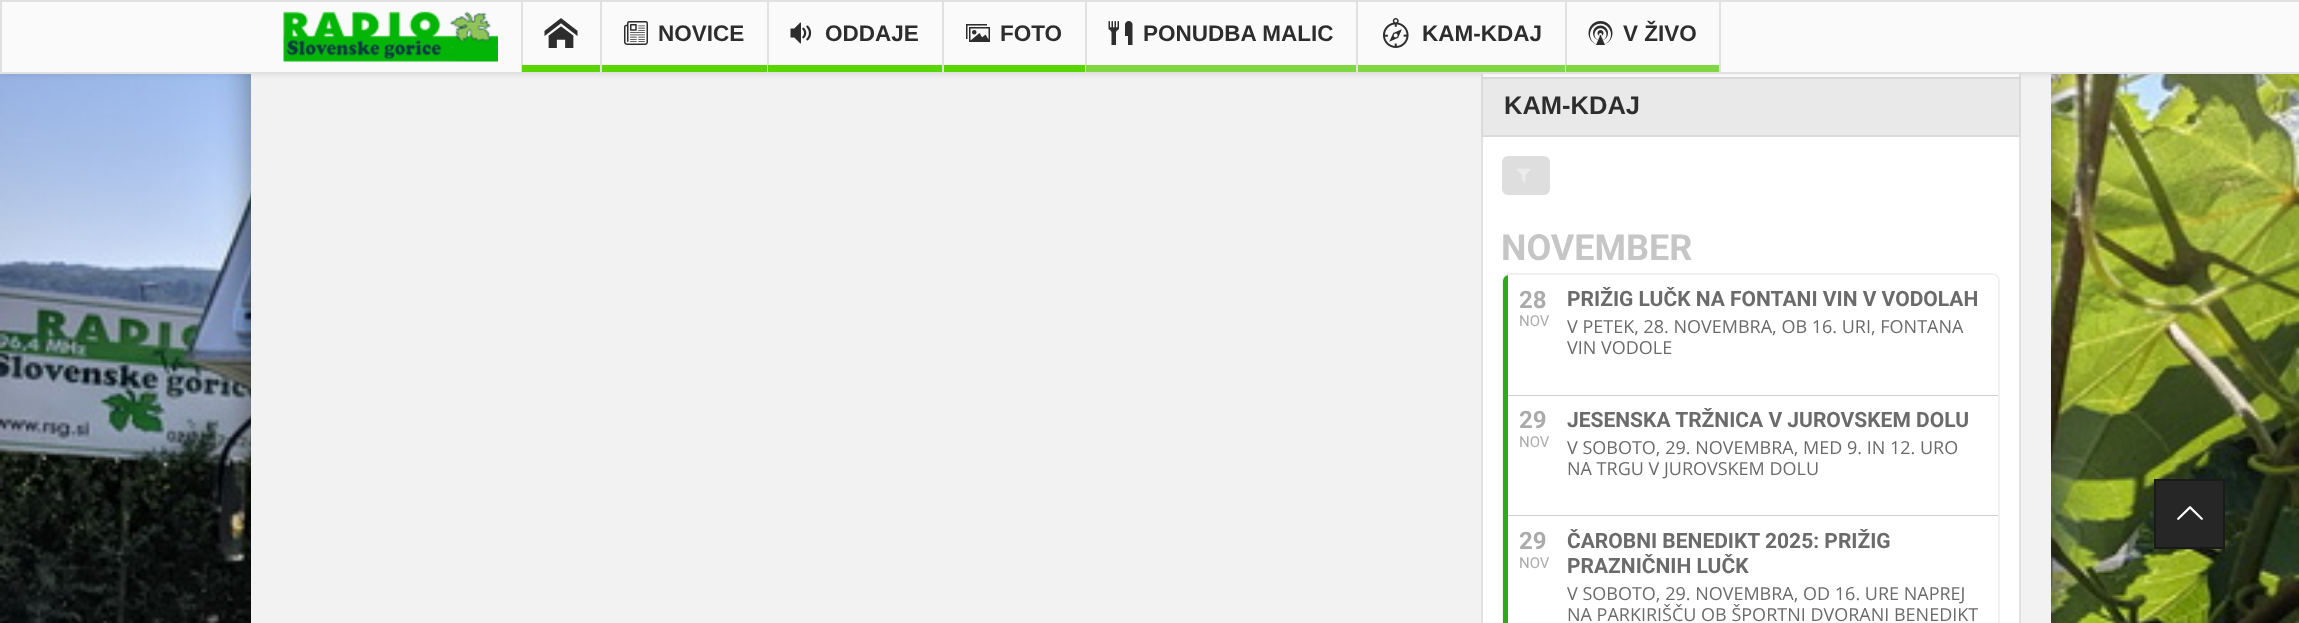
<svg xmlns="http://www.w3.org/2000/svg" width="2299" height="623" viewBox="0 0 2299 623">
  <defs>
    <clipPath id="clip1"><rect x="1503" y="275" width="495" height="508" rx="6"/></clipPath>
  </defs>
  <rect width="100%" height="100%" fill="rgb(255,255,255)"/>
  <image x="0" y="74" width="2299" height="549" href="pic1.png"/>
  <rect x="251" y="-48" width="1800" height="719" fill="rgba(0,0,0,0.44)" filter="blur(16px)"/>
  <rect x="251" y="74" width="1800" height="549" fill="rgb(242,242,242)"/>
  <rect x="1483" y="74" width="536" height="549" fill="rgb(255,255,255)"/>
  <rect x="1482" y="-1" width="538" height="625" fill="none" stroke="rgb(225,225,225)" stroke-width="2"/>
  <rect x="1482" y="78" width="538" height="58" fill="rgb(233,233,233)" stroke="rgb(219,219,219)" stroke-width="2"/>
  <rect x="0" y="0" width="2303" height="74" fill="rgba(0,0,0,0.1)" filter="blur(3px)"/>
  <rect x="1" y="1" width="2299" height="72" fill="rgb(250,250,250)" stroke="rgb(225,225,225)" stroke-width="2"/>
  <image x="283" y="11" width="215" height="51" href="pic2.png"/>
  <rect x="600" y="2" width="2" height="70" fill="rgb(225,225,225)"/>
  <rect x="521" y="2" width="2" height="70" fill="rgb(225,225,225)"/>
  <image x="544" y="18" width="34" height="30" href="pic3.png"/>
  <rect x="522" y="65" width="78" height="7" fill="rgb(89,214,0)"/>
  <rect x="767" y="2" width="2" height="70" fill="rgb(225,225,225)"/>
  <image x="624" y="21" width="24" height="24" href="pic4.png"/>
  <text x="658" y="41" font-family="Liberation Sans" font-size="22.5" font-weight="bold" fill="rgb(45,45,45)">NOVICE</text>
  <rect x="602" y="65" width="165" height="7" fill="rgb(89,214,0)"/>
  <rect x="942" y="2" width="2" height="70" fill="rgb(225,225,225)"/>
  <image x="790" y="22" width="22" height="22" href="pic5.png"/>
  <text x="825" y="41" font-family="Liberation Sans" font-size="22.5" font-weight="bold" fill="rgb(45,45,45)">ODDAJE</text>
  <rect x="768" y="65" width="174" height="7" fill="rgb(89,214,0)"/>
  <rect x="1085" y="2" width="2" height="70" fill="rgb(225,225,225)"/>
  <image x="966" y="24" width="24" height="18" href="pic6.png"/>
  <text x="1000" y="41" font-family="Liberation Sans" font-size="22.5" font-weight="bold" fill="rgb(45,45,45)">FOTO</text>
  <rect x="944" y="65" width="141" height="7" fill="rgb(89,214,0)"/>
  <rect x="1356" y="2" width="2" height="70" fill="rgb(225,225,225)"/>
  <image x="1108" y="21" width="25" height="24" href="pic7.png"/>
  <text x="1143" y="41" font-family="Liberation Sans" font-size="22.5" font-weight="bold" fill="rgb(45,45,45)">PONUDBA MALIC</text>
  <rect x="1086" y="65" width="270" height="7" fill="rgb(129,215,66)"/>
  <rect x="1565" y="2" width="2" height="70" fill="rgb(225,225,225)"/>
  <image x="1383" y="18" width="26" height="30" href="pic8.png"/>
  <text x="1422" y="41" font-family="Liberation Sans" font-size="22.5" font-weight="bold" fill="rgb(45,45,45)">KAM-KDAJ</text>
  <rect x="1358" y="65" width="207" height="7" fill="rgb(129,215,66)"/>
  <rect x="1719" y="2" width="2" height="70" fill="rgb(225,225,225)"/>
  <image x="1588" y="21" width="25" height="24" href="pic9.png"/>
  <text x="1623" y="41" font-family="Liberation Sans" font-size="22.5" font-weight="bold" fill="rgb(45,45,45)">V ŽIVO</text>
  <rect x="1566" y="65" width="153" height="7" fill="rgb(129,215,66)"/>
  <text x="1504" y="114" font-family="Liberation Sans" font-size="25.5" font-weight="bold" fill="rgb(45,45,45)">KAM-KDAJ</text>
  <rect x="1502" y="156" width="48" height="39" rx="6" fill="rgb(222,222,222)"/>
  <image x="1516" y="168" width="15" height="15" href="pic10.png"/>
  <text x="1501" y="260" font-family="Roboto" font-size="36" font-weight="bold" fill="rgb(198,198,198)">NOVEMBER</text>
  <rect x="1503" y="274" width="496" height="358" rx="7" fill="none" stroke="rgb(241,241,241)" stroke-width="2"/>
  <path d="M1509 275H1992C1995.5 275 1998 277.5 1998 281V396H1503V281C1503 277.5 1505.5 275 1509 275Z" fill="rgb(255,255,255)"/>
  <g clip-path="url(#clip1)">
    <rect x="1503" y="275" width="5" height="121" fill="rgb(43,171,21)"/>
  </g>
  <text x="1519" y="308" font-family="Roboto" font-size="24" font-weight="bold" fill="rgb(171,171,171)">28</text>
  <text x="1519" y="326" font-family="Roboto" font-size="15" fill="rgb(171,171,171)">NOV</text>
  <text x="1567" y="306" font-family="Roboto" font-size="21" font-weight="bold" fill="rgb(107,107,107)">PRIŽIG LUČK NA FONTANI VIN V VODOLAH</text>
  <g font-family="Open Sans" font-size="18" fill="rgb(107,107,107)">
    <text>
      <tspan x="1567" y="333">V PETEK, 28. NOVEMBRA, OB 16. URI, FONTANA</tspan>
      <tspan x="1567" y="354">VIN VODOLE</tspan>
    </text>
  </g>
  <rect x="1508" y="395" width="490" height="1" fill="rgb(205,205,205)"/>
  <rect x="1503" y="396" width="5" height="227" fill="rgb(43,171,21)"/>
  <text x="1519" y="428" font-family="Roboto" font-size="24" font-weight="bold" fill="rgb(171,171,171)">29</text>
  <text x="1519" y="447" font-family="Roboto" font-size="15" fill="rgb(171,171,171)">NOV</text>
  <text x="1567" y="427" font-family="Roboto" font-size="21" font-weight="bold" fill="rgb(107,107,107)">JESENSKA TRŽNICA V JUROVSKEM DOLU</text>
  <g font-family="Open Sans" font-size="18" fill="rgb(107,107,107)">
    <text>
      <tspan x="1567" y="454">V SOBOTO, 29. NOVEMBRA, MED 9. IN 12. URO</tspan>
      <tspan x="1567" y="475">NA TRGU V JUROVSKEM DOLU</tspan>
    </text>
  </g>
  <rect x="1508" y="515" width="490" height="1" fill="rgb(205,205,205)"/>
  <text x="1519" y="549" font-family="Roboto" font-size="24" font-weight="bold" fill="rgb(171,171,171)">29</text>
  <text x="1519" y="568" font-family="Roboto" font-size="15" fill="rgb(171,171,171)">NOV</text>
  <g font-family="Roboto" font-size="21" font-weight="bold" fill="rgb(107,107,107)">
    <text>
      <tspan x="1567" y="548">ČAROBNI BENEDIKT 2025: PRIŽIG</tspan>
      <tspan x="1567" y="573">PRAZNIČNIH LUČK</tspan>
    </text>
  </g>
  <g font-family="Open Sans" font-size="18" fill="rgb(107,107,107)">
    <text>
      <tspan x="1567" y="600">V SOBOTO, 29. NOVEMBRA, OD 16. URE NAPREJ</tspan>
      <tspan x="1567" y="621">NA PARKIRIŠČU OB ŠPORTNI DVORANI BENEDIKT</tspan>
    </text>
  </g>
  <rect x="2155" y="480" width="69" height="68" fill="rgb(38,38,38)" stroke="rgb(26,26,26)" stroke-width="2"/>
  <image x="2177" y="506" width="26" height="14" href="pic11.png"/>
</svg>
